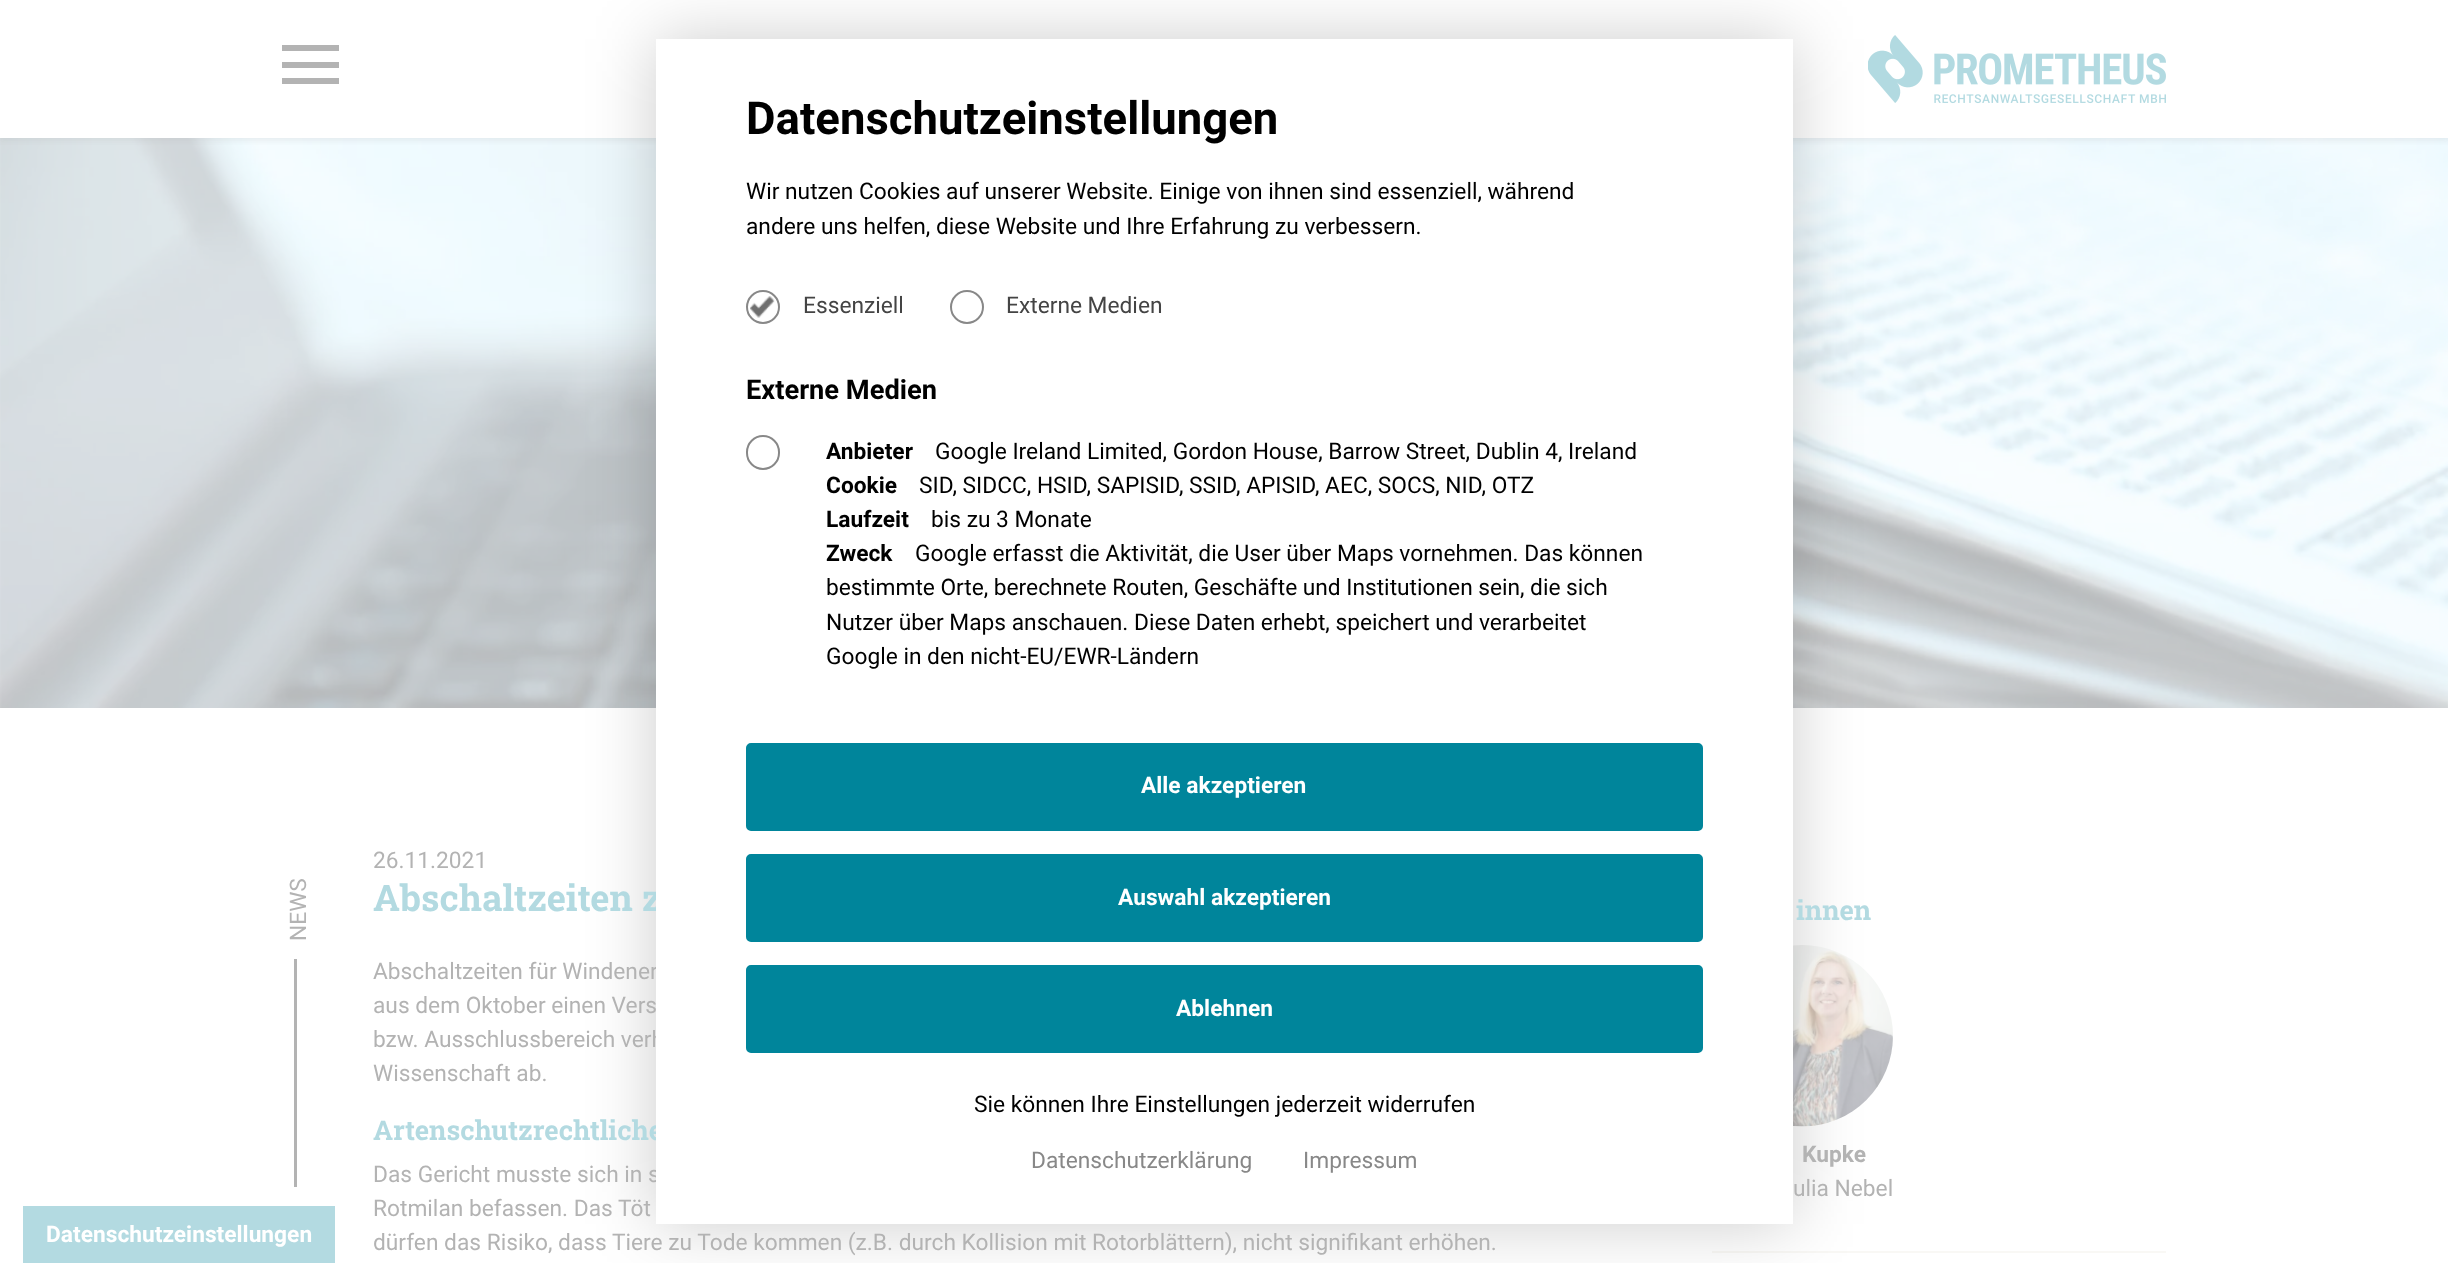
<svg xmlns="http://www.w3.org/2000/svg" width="2448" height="1263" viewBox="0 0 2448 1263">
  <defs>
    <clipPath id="clip1"><rect x="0" y="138" width="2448" height="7"/></clipPath>
  </defs>
  <rect width="100%" height="100%" fill="rgb(255,255,255)"/>
  <image x="0" y="138" width="2448" height="570" href="pic3.png"/>
  <g clip-path="url(#clip1)">
    <rect x="-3" y="-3" width="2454" height="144" fill="rgba(179,179,179,0.2)" filter="blur(3px)"/>
  </g>
  <image x="1868" y="35" width="298" height="69" href="pic2.png"/>
  <rect x="1712" y="1251" width="454" height="2" fill="rgb(249,248,245)"/>
  <image x="1793" y="945" width="100" height="182" href="pic4.png"/>
  <rect x="656" y="39" width="1137" height="1185" fill="rgba(0,0,0,0.2)" filter="blur(34px)"/>
  <text x="373" y="911" font-family="Roboto Slab" font-size="36.5" font-weight="bold" fill="rgb(179,218,225)">Abschaltzeiten z</text>
  <g font-family="Roboto" font-size="22.75" fill="rgb(179,179,179)">
    <text x="373" y="979">Abschaltzeiten für Windener</text>
    <text x="373" y="1047">bzw. Ausschlussbereich verh</text>
  </g>
  <text x="373" y="1140" font-family="Roboto Slab" font-size="27.25" font-weight="bold" fill="rgb(179,218,225)">Artenschutzrechtliche</text>
  <text x="373" y="1182" font-family="Roboto" font-size="22.75" fill="rgb(179,179,179)">Das Gericht musste sich in s</text>
  <rect x="656" y="39" width="1137" height="1185" fill="rgb(255,255,255)"/>
  <text x="746" y="134" font-family="Roboto" font-size="45.5" font-weight="bold" fill="rgb(0,0,0)">Datenschutzeinstellungen</text>
  <g font-family="Roboto" font-size="22.75" fill="rgb(0,0,0)">
    <text>
      <tspan x="746" y="199">Wir nutzen Cookies auf unserer Website. Einige von ihnen sind essenziell, während</tspan>
      <tspan x="746" y="234">andere uns helfen, diese Website und Ihre Erfahrung zu verbessern.</tspan>
    </text>
  </g>
  <circle cx="763" cy="307" r="16" fill="none" stroke="rgb(136,136,136)" stroke-width="2"/>
  <image x="750" y="296" width="25" height="22" href="pic1.png"/>
  <text x="803" y="313" font-family="Roboto" font-size="22.75" fill="rgb(68,68,68)">Essenziell</text>
  <circle cx="967" cy="307" r="16" fill="none" stroke="rgb(136,136,136)" stroke-width="2"/>
  <text x="1006" y="313" font-family="Roboto" font-size="22.75" fill="rgb(68,68,68)">Externe Medien</text>
  <text x="746" y="399" font-family="Roboto" font-size="27.25" font-weight="bold" fill="rgb(0,0,0)">Externe Medien</text>
  <rect x="747" y="436" width="32" height="33" rx="16" fill="none" stroke="rgb(136,136,136)" stroke-width="2"/>
  <text x="826" y="459" font-family="Roboto" font-size="22.75" font-weight="bold" fill="rgb(0,0,0)">Anbieter</text>
  <text x="935" y="459" font-family="Roboto" font-size="22.75" fill="rgb(0,0,0)">Google Ireland Limited, Gordon House, Barrow Street, Dublin 4, Ireland</text>
  <text x="826" y="493" font-family="Roboto" font-size="22.75" font-weight="bold" fill="rgb(0,0,0)">Cookie</text>
  <text x="919" y="493" font-family="Roboto" font-size="22.75" fill="rgb(0,0,0)">SID, SIDCC, HSID, SAPISID, SSID, APISID, AEC, SOCS, NID, OTZ</text>
  <text x="826" y="527" font-family="Roboto" font-size="22.75" font-weight="bold" fill="rgb(0,0,0)">Laufzeit</text>
  <text x="931" y="527" font-family="Roboto" font-size="22.75" fill="rgb(0,0,0)">bis zu 3 Monate</text>
  <text x="826" y="561" font-family="Roboto" font-size="22.75" font-weight="bold" fill="rgb(0,0,0)">Zweck</text>
  <g font-family="Roboto" font-size="22.75" fill="rgb(0,0,0)">
    <text x="915" y="561">Google erfasst die Aktivität, die User über Maps vornehmen. Das können</text>
    <text>
      <tspan x="826" y="595" word-spacing="-0.1">bestimmte Orte, berechnete Routen, Geschäfte und Institutionen sein, die sich</tspan>
      <tspan x="826" y="630">Nutzer über Maps anschauen. Diese Daten erhebt, speichert und verarbeitet</tspan>
      <tspan x="826" y="664">Google in den nicht-EU/EWR-Ländern</tspan>
    </text>
  </g>
  <rect x="748.5" y="745.5" width="952" height="83" rx="2.5" fill="rgb(0,133,155)" stroke="rgb(0,133,155)" stroke-width="5"/>
  <text x="1141" y="793" font-family="Roboto" font-size="22.75" font-weight="bold" fill="rgb(255,255,255)">Alle akzeptieren</text>
  <rect x="748.5" y="856.5" width="952" height="83" rx="2.5" fill="rgb(0,133,155)" stroke="rgb(0,133,155)" stroke-width="5"/>
  <text x="1118" y="905" font-family="Roboto" font-size="22.75" font-weight="bold" fill="rgb(255,255,255)">Auswahl akzeptieren</text>
  <rect x="748.5" y="967.5" width="952" height="83" rx="2.5" fill="rgb(0,133,155)" stroke="rgb(0,133,155)" stroke-width="5"/>
  <text x="1176" y="1016" font-family="Roboto" font-size="22.75" font-weight="bold" fill="rgb(255,255,255)">Ablehnen</text>
  <text x="974" y="1112" font-family="Roboto" font-size="22.75" fill="rgb(0,0,0)">Sie können Ihre Einstellungen jederzeit widerrufen</text>
  <g font-family="Roboto" font-size="22.75" fill="rgb(136,136,136)">
    <text x="1031" y="1168">Datenschutzerklärung</text>
    <text x="1303" y="1168">Impressum</text>
  </g>
  <rect x="23" y="1206" width="312" height="57" fill="rgb(179,218,225)"/>
  <text x="46" y="1242" font-family="Roboto" font-size="22.75" font-weight="bold" fill="rgb(255,255,255)">Datenschutzeinstellungen</text>
  <rect x="282" y="45" width="57" height="6" fill="rgb(179,179,179)"/>
  <rect x="282" y="62" width="57" height="6" fill="rgb(179,179,179)"/>
  <rect x="282" y="78" width="57" height="6" fill="rgb(179,179,179)"/>
  <text x="306" y="941" transform="rotate(-90 306 941)" font-family="Roboto" font-size="22.75" fill="rgb(179,179,179)">NEWS</text>
  <rect x="294" y="959" width="3" height="228" fill="rgb(179,179,179)"/>
  <g font-family="Roboto" font-size="22.75" fill="rgb(179,179,179)">
    <text x="373" y="868">26.11.2021</text>
    <text x="373" y="1013">aus dem Oktober einen Vers</text>
    <text x="373" y="1081">Wissenschaft ab.</text>
    <text>
      <tspan x="373" y="1216">Rotmilan befassen. Das Töt</tspan>
      <tspan x="373" y="1250">dürfen das Risiko, dass Tiere zu Tode kommen (z.B. durch Kollision mit Rotorblättern), nicht signifikant erhöhen.</tspan>
    </text>
  </g>
  <text x="1796" y="920" font-family="Roboto Slab" font-size="27.25" font-weight="bold" fill="rgb(179,218,225)">innen</text>
  <text x="1802" y="1162" font-family="Roboto" font-size="22.75" font-weight="bold" fill="rgb(179,179,179)">Kupke</text>
  <text x="1793" y="1196" font-family="Roboto" font-size="22.75" fill="rgb(179,179,179)">ulia Nebel</text>
</svg>
